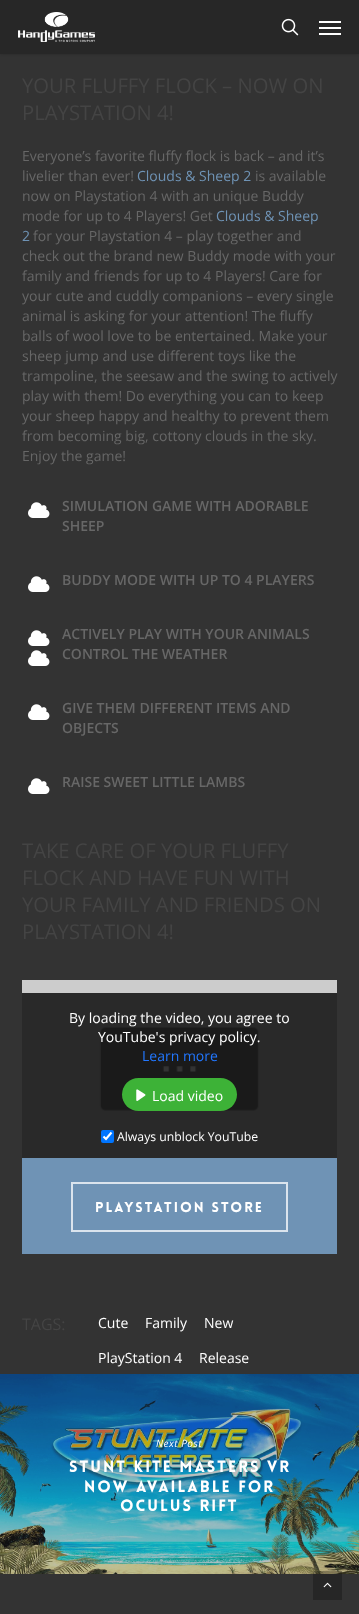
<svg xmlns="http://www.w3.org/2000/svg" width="359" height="1614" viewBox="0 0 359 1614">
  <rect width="100%" height="100%" fill="rgb(51,51,51)"/>
  <rect x="0" y="0" width="359" height="54" fill="rgba(0,0,0,0.22)" filter="blur(1.5px)"/>
  <rect x="0" y="0" width="359" height="54" fill="rgb(39,39,39)"/>
  <image x="18" y="12" width="77" height="30" href="pic1.png"/>
  <image x="281" y="18" width="18" height="18" href="pic2.png"/>
  <rect x="319" y="21" width="22" height="2" fill="rgb(255,255,255)"/>
  <rect x="319" y="33" width="22" height="2" fill="rgb(255,255,255)"/>
  <rect x="319" y="27" width="22" height="2" fill="rgb(255,255,255)"/>
  <g font-family="Open Sans" font-size="20.25" fill="rgb(68,68,68)">
    <text>
      <tspan x="22" y="93">YOUR FLUFFY FLOCK – NOW ON</tspan>
      <tspan x="22" y="120">PLAYSTATION 4!</tspan>
    </text>
  </g>
  <g font-family="Open Sans" font-size="14" fill="rgb(103,103,103)">
    <text>
      <tspan x="22" y="161">Everyone’s favorite fluffy flock is back – and it’s</tspan>
      <tspan x="22" y="181">livelier than ever!</tspan>
    </text>
  </g>
  <text x="137" y="181" font-family="Open Sans" font-size="14" fill="rgb(111,147,181)">Clouds &amp; Sheep 2</text>
  <g font-family="Open Sans" font-size="14" fill="rgb(103,103,103)">
    <text x="255" y="181">is available</text>
    <text>
      <tspan x="22" y="201">now on Playstation 4 with an unique Buddy</tspan>
      <tspan x="22" y="221">mode for up to 4 Players! Get</tspan>
    </text>
  </g>
  <g font-family="Open Sans" font-size="14" fill="rgb(111,147,181)">
    <text x="216" y="221">Clouds &amp; Sheep</text>
    <text x="22" y="241">2</text>
  </g>
  <g font-family="Open Sans" font-size="14" fill="rgb(103,103,103)">
    <text x="33" y="241">for your Playstation 4 – play together and</text>
    <text>
      <tspan x="22" y="261">check out the brand new Buddy mode with your</tspan>
      <tspan x="22" y="281">family and friends for up to 4 Players! Care for</tspan>
      <tspan x="22" y="301">your cute and cuddly companions – every single</tspan>
      <tspan x="22" y="321">animal is asking for your attention! The fluffy</tspan>
      <tspan x="22" y="341">balls of wool love to be entertained. Make your</tspan>
      <tspan x="22" y="361">sheep jump and use different toys like the</tspan>
      <tspan x="22" y="381">trampoline, the seesaw and the swing to actively</tspan>
      <tspan x="22" y="401">play with them! Do everything you can to keep</tspan>
      <tspan x="22" y="421">your sheep happy and healthy to prevent them</tspan>
      <tspan x="22" y="441">from becoming big, cottony clouds in the sky.</tspan>
      <tspan x="22" y="461">Enjoy the game!</tspan>
    </text>
  </g>
  <image x="28" y="502" width="22" height="16" href="pic3.png"/>
  <g font-family="Open Sans" font-size="14" font-weight="600" fill="rgb(103,103,103)">
    <text>
      <tspan x="62" y="511">SIMULATION GAME WITH ADORABLE</tspan>
      <tspan x="62" y="531">SHEEP</tspan>
    </text>
  </g>
  <image x="28" y="576" width="22" height="16" href="pic3.png"/>
  <text x="62" y="585" font-family="Open Sans" font-size="14" font-weight="600" fill="rgb(103,103,103)">BUDDY MODE WITH UP TO 4 PLAYERS</text>
  <image x="28" y="630" width="22" height="16" href="pic3.png"/>
  <text x="62" y="639" font-family="Open Sans" font-size="14" font-weight="600" fill="rgb(103,103,103)">ACTIVELY PLAY WITH YOUR ANIMALS</text>
  <image x="28" y="650" width="22" height="16" href="pic3.png"/>
  <text x="62" y="659" font-family="Open Sans" font-size="14" font-weight="600" fill="rgb(103,103,103)">CONTROL THE WEATHER</text>
  <image x="28" y="704" width="22" height="16" href="pic3.png"/>
  <g font-family="Open Sans" font-size="14" font-weight="600" fill="rgb(103,103,103)">
    <text>
      <tspan x="62" y="713">GIVE THEM DIFFERENT ITEMS AND</tspan>
      <tspan x="62" y="733">OBJECTS</tspan>
    </text>
  </g>
  <image x="28" y="778" width="22" height="16" href="pic3.png"/>
  <text x="62" y="787" font-family="Open Sans" font-size="14" font-weight="600" fill="rgb(103,103,103)">RAISE SWEET LITTLE LAMBS</text>
  <g font-family="Open Sans" font-size="20.25" fill="rgb(68,68,68)">
    <text>
      <tspan x="22" y="858">TAKE CARE OF YOUR FLUFFY</tspan>
      <tspan x="22" y="885">FLOCK AND HAVE FUN WITH</tspan>
      <tspan x="22" y="912">YOUR FAMILY AND FRIENDS ON</tspan>
      <tspan x="22" y="939">PLAYSTATION 4!</tspan>
    </text>
  </g>
  <image x="22" y="980" width="315" height="178" href="pic4.png"/>
  <g font-family="Open Sans" font-size="14" fill="rgb(255,255,255)">
    <text x="69" y="1023">By loading the video, you agree to</text>
    <text x="98" y="1042">YouTube's privacy policy.</text>
  </g>
  <text x="142" y="1061" font-family="Open Sans" font-size="14" fill="rgb(34,119,255)">Learn more</text>
  <rect x="122" y="1078" width="115" height="33" rx="16.5" fill="rgb(61,178,55)"/>
  <image x="136" y="1089" width="10" height="12" href="pic5.png"/>
  <text x="152" y="1101" font-family="Open Sans" font-size="14" fill="rgb(255,255,255)">Load video</text>
  <rect x="101" y="1130" width="13" height="13" rx="2" fill="rgb(0,117,255)"/>
  <path d="M103.5 1136.5L106 1139L111.5 1132.5" fill="none" stroke="rgb(255,255,255)" stroke-width="2.1"/>
  <text x="117" y="1141" font-family="Open Sans" font-size="12.25" fill="rgb(255,255,255)">Always unblock YouTube</text>
  <rect x="22" y="1158" width="315" height="96" fill="rgb(111,147,181)"/>
  <rect x="72" y="1183" width="215" height="48" fill="none" stroke="rgb(219,228,237)" stroke-width="2"/>
  <text x="95" y="1212" font-family="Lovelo" font-size="14" font-weight="900" letter-spacing="2" fill="rgb(255,255,255)">PLAYSTATION STORE</text>
  <text x="22" y="1330" font-family="Open Sans" font-size="16" fill="rgb(68,68,68)">TAGS:</text>
  <g font-family="Open Sans" font-size="14" fill="rgb(255,255,255)">
    <text x="98" y="1328">Cute</text>
    <text x="145" y="1328">Family</text>
    <text x="204" y="1328">New</text>
    <text x="98" y="1363">PlayStation 4</text>
    <text x="199" y="1363">Release</text>
  </g>
  <image x="0" y="1374" width="359" height="200" href="pic6.png"/>
  <text x="156" y="1447" font-family="Open Sans" font-size="10" font-style="italic" letter-spacing="0.5" fill="rgb(255,255,255)">Next Post</text>
  <g font-family="Lovelo" font-size="16" font-weight="900" letter-spacing="2" fill="rgb(255,255,255)">
    <text x="69" y="1472">Stunt Kite Masters VR</text>
    <text x="84" y="1492">now available for</text>
    <text x="120" y="1511">Oculus Rift</text>
  </g>
  <rect x="313" y="1571" width="29" height="29" fill="rgba(0,0,0,0.25)"/>
  <image x="323" y="1582" width="9" height="6" href="pic7.png"/>
</svg>
